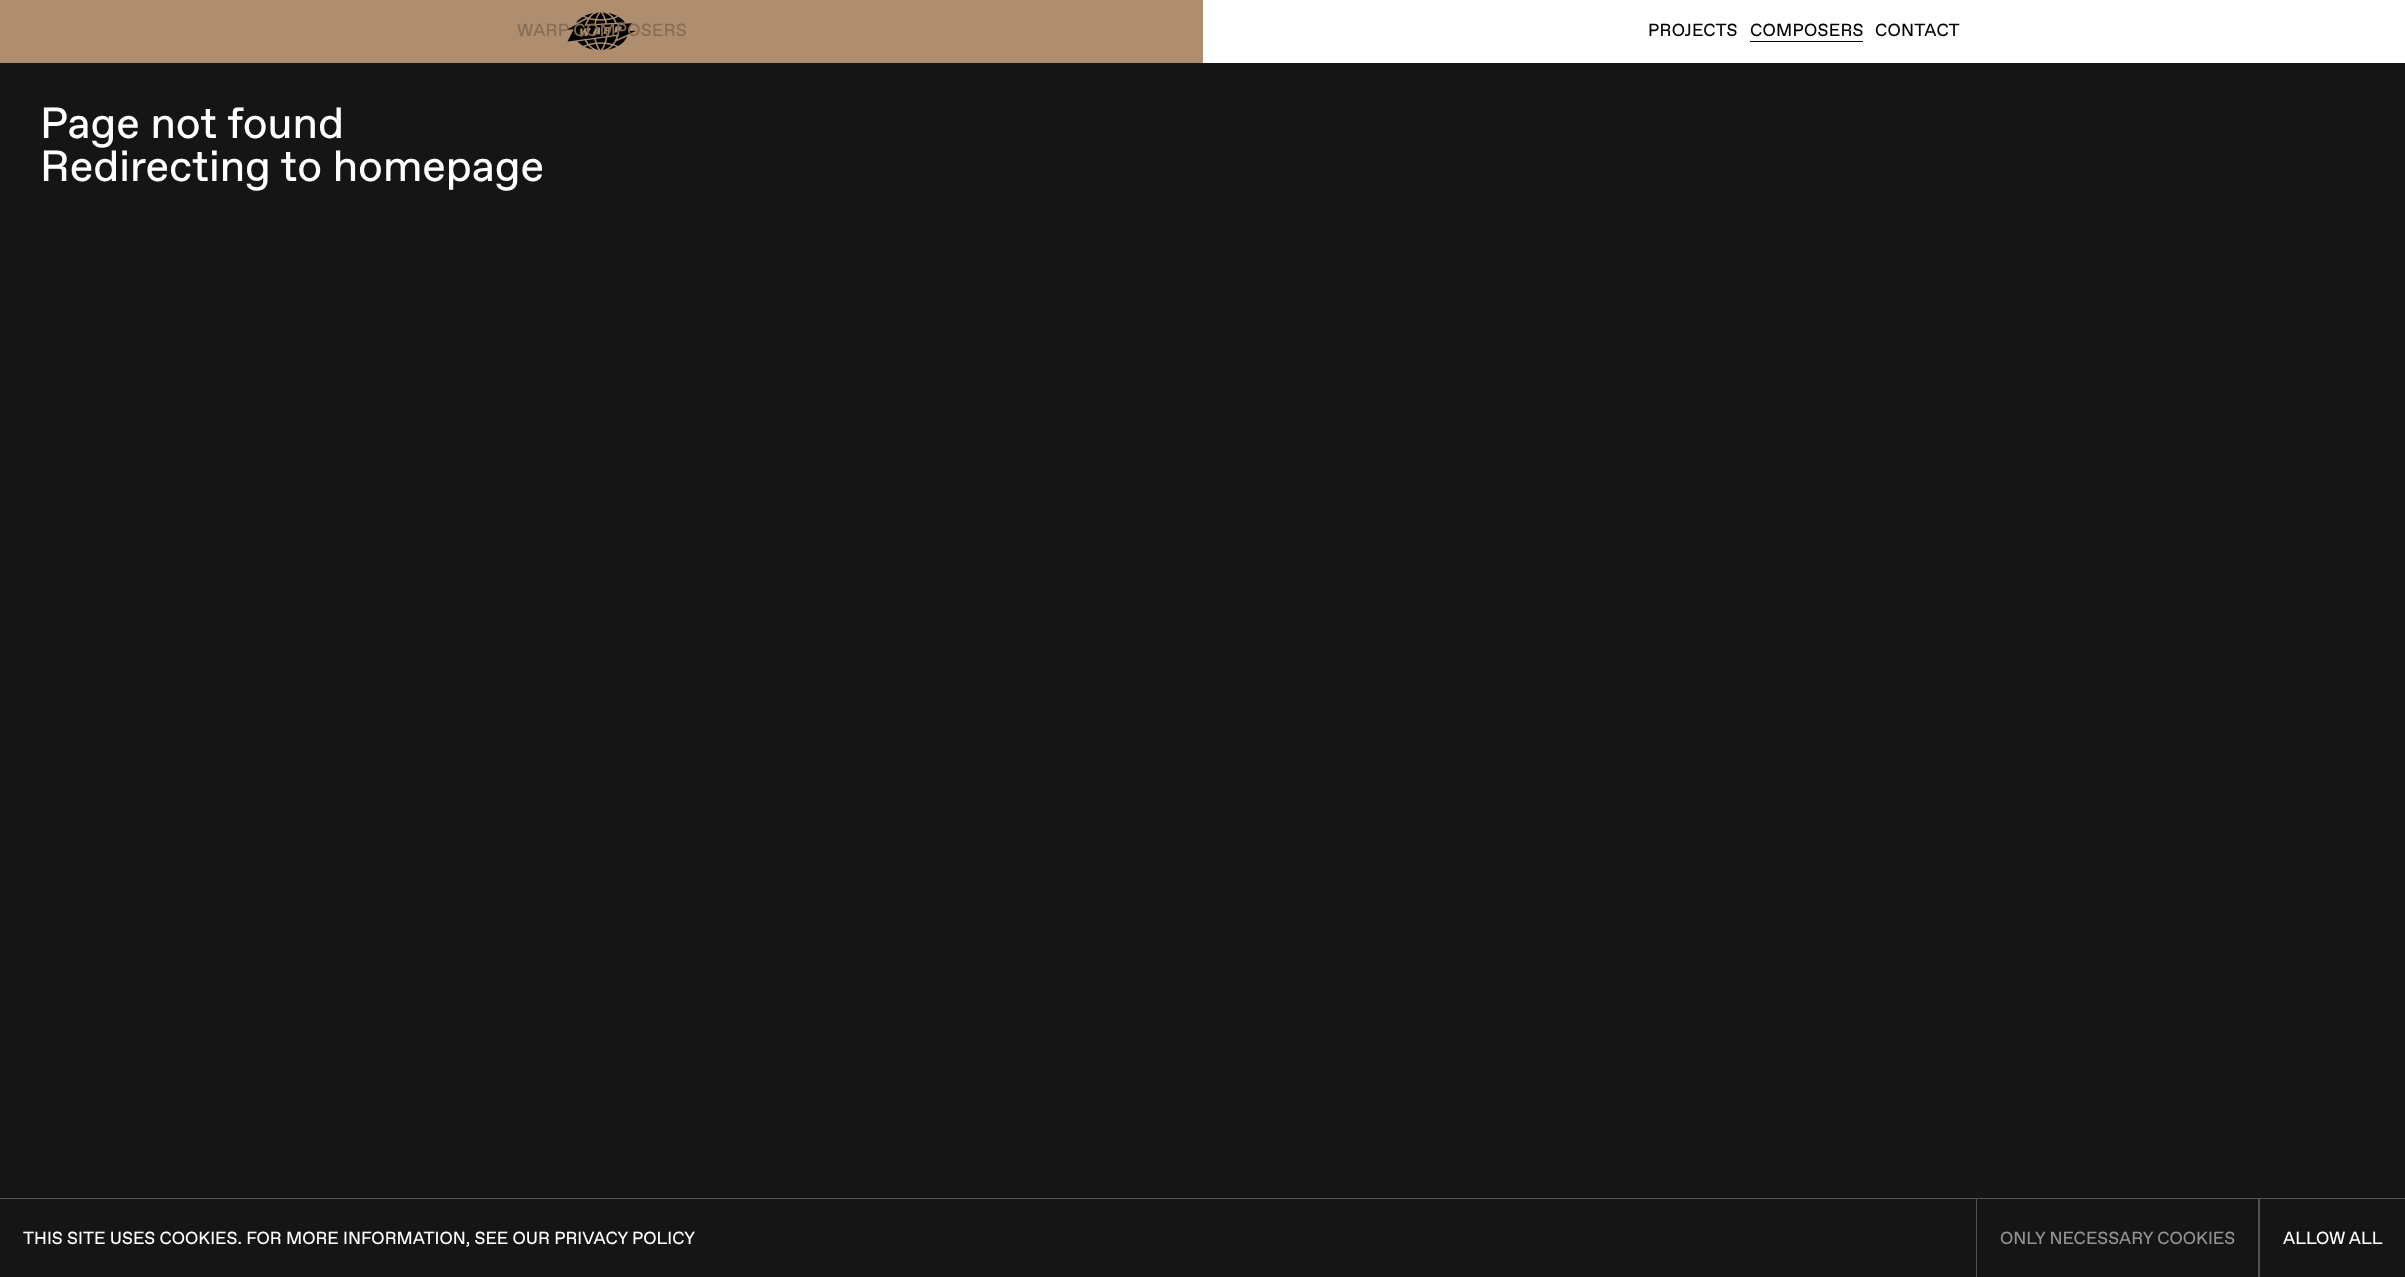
<svg xmlns="http://www.w3.org/2000/svg" width="2405" height="1277" viewBox="0 0 2405 1277">
  <rect width="100%" height="100%" fill="rgb(21,21,21)"/>
  <rect x="1203" y="0" width="1202" height="63" fill="rgb(255,255,255)"/>
  <rect x="0" y="0" width="1203" height="63" fill="rgb(175,142,111)"/>
  <image x="566" y="12" width="71" height="39" href="pic1.png"/>
  <text x="517" y="36" font-family="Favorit" font-size="17.5" letter-spacing="0.25" fill="rgb(133,108,84)">WARP COMPOSERS</text>
  <g font-family="Favorit" font-size="17.5" letter-spacing="0.25" fill="rgb(0,0,0)">
    <text x="1648" y="36">PROJECTS</text>
    <text x="1750" y="36">COMPOSERS</text>
  </g>
  <rect x="1750" y="41" width="113" height="1" fill="rgb(0,0,0)"/>
  <text x="1875" y="36" font-family="Favorit" font-size="17.5" letter-spacing="0.25" fill="rgb(0,0,0)">CONTACT</text>
  <g font-family="Favorit" font-size="43.75" fill="rgb(255,255,255)">
    <text>
      <tspan x="40" y="138">Page not found</tspan>
      <tspan x="40" y="181">Redirecting to homepage</tspan>
    </text>
  </g>
  <rect x="0" y="1198" width="2405" height="1" fill="rgb(83,82,82)"/>
  <text x="23" y="1244" font-family="Favorit" font-size="17.5" fill="rgb(255,255,255)">THIS SITE USES COOKIES. FOR MORE INFORMATION, SEE OUR PRIVACY POLICY</text>
  <rect x="2258" y="1199" width="2" height="78" fill="rgb(83,82,82)"/>
  <rect x="1976" y="1199" width="1" height="78" fill="rgb(83,82,82)"/>
  <text x="2000" y="1244" font-family="Favorit" font-size="17.5" fill="rgb(147,147,147)">ONLY NECESSARY COOKIES</text>
  <text x="2283" y="1244" font-family="Favorit" font-size="17.5" fill="rgb(255,255,255)">ALLOW ALL</text>
</svg>
